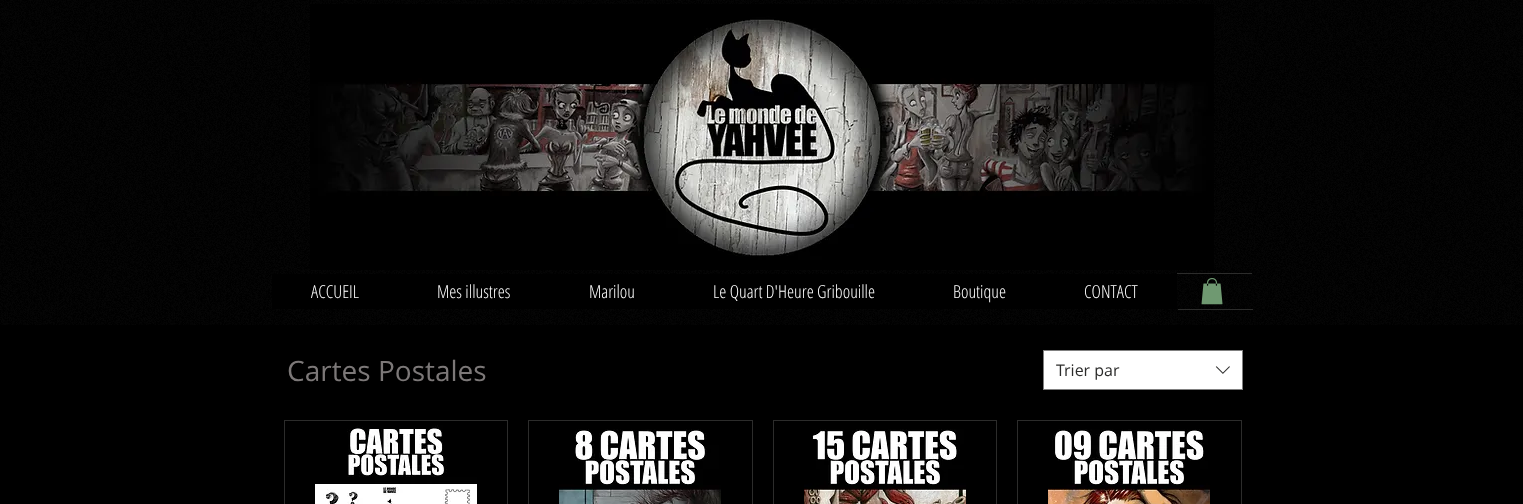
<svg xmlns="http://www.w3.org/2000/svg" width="1523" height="504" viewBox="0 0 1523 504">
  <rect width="100%" height="100%" fill="rgb(0,0,0)"/>
  <image x="0" y="0" width="1523" height="325" href="pic1.png"/>
  <image x="310" y="4" width="904" height="266" href="pic2.png"/>
  <rect x="1177" y="273" width="75" height="1" fill="rgb(44,44,43)"/>
  <rect x="272" y="274" width="905" height="35" fill="rgb(0,0,0)"/>
  <g font-family="Open Sans Condensed" font-size="18" font-weight="300" fill="rgb(255,255,255)">
    <text x="311" y="298">ACCUEIL</text>
    <text x="437" y="298">Mes illustres</text>
    <text x="589" y="298">Marilou</text>
    <text x="713" y="298">Le Quart D'Heure Gribouille</text>
    <text x="953" y="298">Boutique</text>
    <text x="1084" y="298">CONTACT</text>
  </g>
  <image x="1201" y="278" width="22" height="27" href="pic3.png"/>
  <rect x="1178" y="309" width="75" height="1" fill="rgb(44,44,43)"/>
  <text x="287" y="381" font-family="Open Sans" font-size="28" fill="rgb(124,120,120)">Cartes Postales</text>
  <rect x="1043.5" y="350.5" width="199" height="39" fill="rgb(255,255,255)" stroke="rgb(128,128,128)"/>
  <text x="1056" y="376" font-family="Open Sans" font-size="16" fill="rgb(44,44,43)">Trier par</text>
  <image x="1215" y="366" width="15" height="8" href="pic4.png"/>
  <rect x="284.5" y="420.5" width="223" height="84" fill="none" stroke="rgb(44,44,43)"/>
  <image x="315" y="425" width="162" height="79" href="pic5.png"/>
  <rect x="528.5" y="420.5" width="224" height="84" fill="none" stroke="rgb(44,44,43)"/>
  <image x="559" y="429" width="162" height="75" href="pic6.png"/>
  <rect x="773.5" y="420.5" width="223" height="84" fill="none" stroke="rgb(44,44,43)"/>
  <image x="804" y="429" width="162" height="75" href="pic7.png"/>
  <rect x="1017.5" y="420.5" width="224" height="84" fill="none" stroke="rgb(44,44,43)"/>
  <image x="1048" y="429" width="162" height="75" href="pic8.png"/>
</svg>
